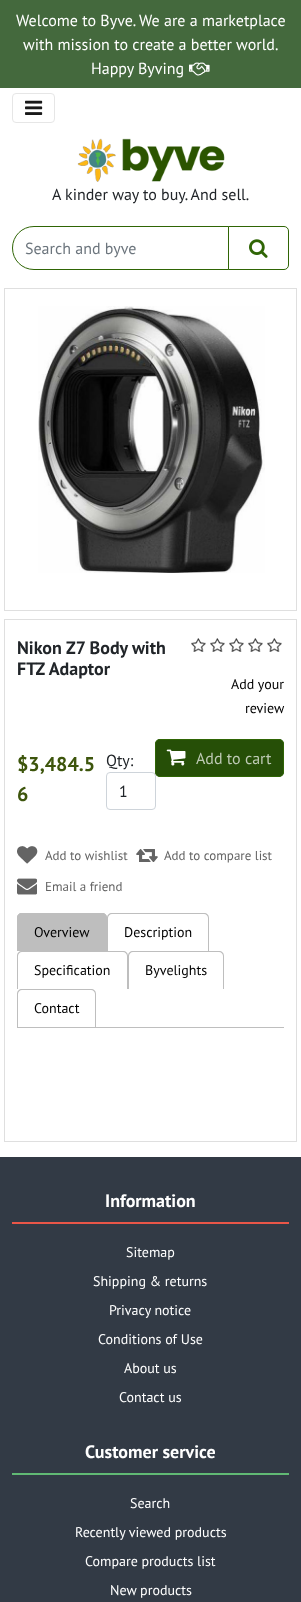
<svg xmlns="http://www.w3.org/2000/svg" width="301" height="1602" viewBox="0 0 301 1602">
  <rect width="100%" height="100%" fill="rgb(255,255,255)"/>
  <rect x="0" y="0" width="301" height="88" fill="rgb(68,105,61)"/>
  <g font-family="PT Sans" font-size="16" fill="rgb(255,255,255)">
    <text x="16" y="26">Welcome to Byve. We are a marketplace</text>
    <text x="23" y="50">with mission to create a better world.</text>
    <text x="91" y="74">Happy Byving</text>
  </g>
  <image x="189" y="62" width="21" height="14" href="pic1.png"/>
  <rect x="12.5" y="93.5" width="42" height="29" rx="3.5" fill="none" stroke="rgb(230,230,230)"/>
  <image x="25" y="100" width="18" height="15" href="pic2.png"/>
  <image x="77" y="138" width="148" height="44" href="pic3.png"/>
  <text x="52" y="200" font-family="PT Sans" font-size="16" fill="rgb(33,37,41)">A kinder way to buy. And sell.</text>
  <path d="M34 226.5H228.5V269.5H34C22 269.5 12.5 260 12.5 248C12.5 236 22 226.5 34 226.5Z" fill="none" stroke="rgb(47,101,5)"/>
  <text x="25" y="254" font-family="PT Sans" font-size="16" fill="rgb(108,117,125)">Search and byve</text>
  <path d="M228.5 226.5H284C286.5 226.5 288.5 228.5 288.5 231V265C288.5 267.5 286.5 269.5 284 269.5H228.5Z" fill="rgb(255,255,255)" stroke="rgb(47,101,5)"/>
  <image x="249" y="239" width="19" height="19" href="pic4.png"/>
  <rect x="4.5" y="288.5" width="292" height="322" fill="none" stroke="rgb(223,223,223)"/>
  <image x="38" y="306" width="227" height="267" href="pic5.png"/>
  <rect x="4.5" y="619.5" width="292" height="522" fill="none" stroke="rgb(223,223,223)"/>
  <g font-family="PT Sans" font-size="18" font-weight="bold" fill="rgb(33,37,41)">
    <text>
      <tspan x="17" y="654">Nikon Z7 Body with</tspan>
      <tspan x="17" y="675">FTZ Adaptor</tspan>
    </text>
  </g>
  <image x="191" y="638" width="91" height="14" href="pic6.png"/>
  <g font-family="PT Sans" font-size="14" fill="rgb(0,0,0)">
    <text x="231" y="689">Add your</text>
    <text x="245" y="713">review</text>
  </g>
  <g font-family="PT Sans" font-size="20" font-weight="bold" fill="rgb(61,85,12)">
    <text>
      <tspan x="17" y="771">$3,484.5</tspan>
      <tspan x="17" y="801">6</tspan>
    </text>
  </g>
  <text x="106" y="766" font-family="PT Sans" font-size="16" fill="rgb(33,37,41)">Qty:</text>
  <rect x="106.5" y="772.5" width="49" height="37" rx="3.5" fill="none" stroke="rgb(206,212,218)"/>
  <text x="119" y="797" font-family="PT Sans" font-size="16" fill="rgb(33,37,41)">1</text>
  <rect x="155" y="739" width="129" height="38" rx="5" fill="rgb(38,79,7)"/>
  <image x="166" y="749" width="20" height="17" href="pic7.png"/>
  <rect x="155.5" y="739.5" width="128" height="37" rx="4.5" fill="none" stroke="rgb(47,101,5)"/>
  <text x="196" y="764" font-family="PT Sans" font-size="16" fill="rgb(190,202,181)">Add to cart</text>
  <image x="17" y="846" width="21" height="18" href="pic8.png"/>
  <text x="45" y="860" font-family="PT Sans" font-size="13" fill="rgb(100,100,100)">Add to wishlist</text>
  <image x="136" y="849" width="22" height="13" href="pic9.png"/>
  <text x="164" y="860" font-family="PT Sans" font-size="13" fill="rgb(100,100,100)">Add to compare list</text>
  <image x="17" y="878" width="20" height="17" href="pic10.png"/>
  <text x="45" y="891" font-family="PT Sans" font-size="13" fill="rgb(100,100,100)">Email a friend</text>
  <rect x="17" y="1027" width="267" height="1" fill="rgb(190,190,190)"/>
  <path d="M22 913H102C105 913 107 915 107 918V951H17V918C17 915 19 913 22 913Z" fill="rgb(190,190,190)"/>
  <path d="M22 913H102C105 913 107 915 107 918V951H17V918C17 915 19 913 22 913ZM22 914H102C104 914 106 916 106 918V951H18V918C18 916 20 914 22 914Z" fill="rgb(190,190,190)" fill-rule="evenodd"/>
  <text x="34" y="937" font-family="PT Sans" font-size="14" fill="rgb(0,0,0)">Overview</text>
  <path d="M112 913H204C207 913 209 915 209 918V951H107V918C107 915 109 913 112 913ZM112 914H204C206 914 208 916 208 918V951H108V918C108 916 110 914 112 914Z" fill="rgb(190,190,190)" fill-rule="evenodd"/>
  <text x="124" y="937" font-family="PT Sans" font-size="14" fill="rgb(0,0,0)">Description</text>
  <path d="M22 951H123C126 951 128 953 128 956V989H17V956C17 953 19 951 22 951ZM22 952H123C125 952 127 954 127 956V989H18V956C18 954 20 952 22 952Z" fill="rgb(190,190,190)" fill-rule="evenodd"/>
  <text x="34" y="975" font-family="PT Sans" font-size="14" fill="rgb(0,0,0)">Specification</text>
  <path d="M133 951H219C222 951 224 953 224 956V989H128V956C128 953 130 951 133 951ZM133 952H219C221 952 223 954 223 956V989H129V956C129 954 131 952 133 952Z" fill="rgb(190,190,190)" fill-rule="evenodd"/>
  <text x="145" y="975" font-family="PT Sans" font-size="14" fill="rgb(0,0,0)">Byvelights</text>
  <path d="M22 989H91C94 989 96 991 96 994V1027H17V994C17 991 19 989 22 989ZM22 990H91C93 990 95 992 95 994V1027H18V994C18 992 20 990 22 990Z" fill="rgb(190,190,190)" fill-rule="evenodd"/>
  <text x="34" y="1013" font-family="PT Sans" font-size="14" fill="rgb(0,0,0)">Contact</text>
  <rect x="0" y="1157" width="301" height="445" fill="rgb(50,58,69)"/>
  <rect x="12" y="1222" width="277" height="2" fill="rgb(234,86,72)"/>
  <text x="105" y="1207" font-family="PT Sans" font-size="18" font-weight="bold" fill="rgb(255,255,255)">Information</text>
  <g font-family="PT Sans" font-size="14" fill="rgb(255,255,255)">
    <text x="126" y="1257">Sitemap</text>
    <text x="93" y="1286">Shipping &amp; returns</text>
    <text x="109" y="1315">Privacy notice</text>
    <text x="98" y="1344">Conditions of Use</text>
    <text x="124" y="1373">About us</text>
    <text x="119" y="1402">Contact us</text>
  </g>
  <rect x="12" y="1473" width="277" height="2" fill="rgb(97,185,116)"/>
  <text x="85" y="1458" font-family="PT Sans" font-size="18" font-weight="bold" fill="rgb(255,255,255)">Customer service</text>
  <g font-family="PT Sans" font-size="14" fill="rgb(255,255,255)">
    <text x="130" y="1508">Search</text>
    <text x="75" y="1537">Recently viewed products</text>
    <text x="85" y="1566">Compare products list</text>
    <text x="110" y="1595">New products</text>
  </g>
</svg>
